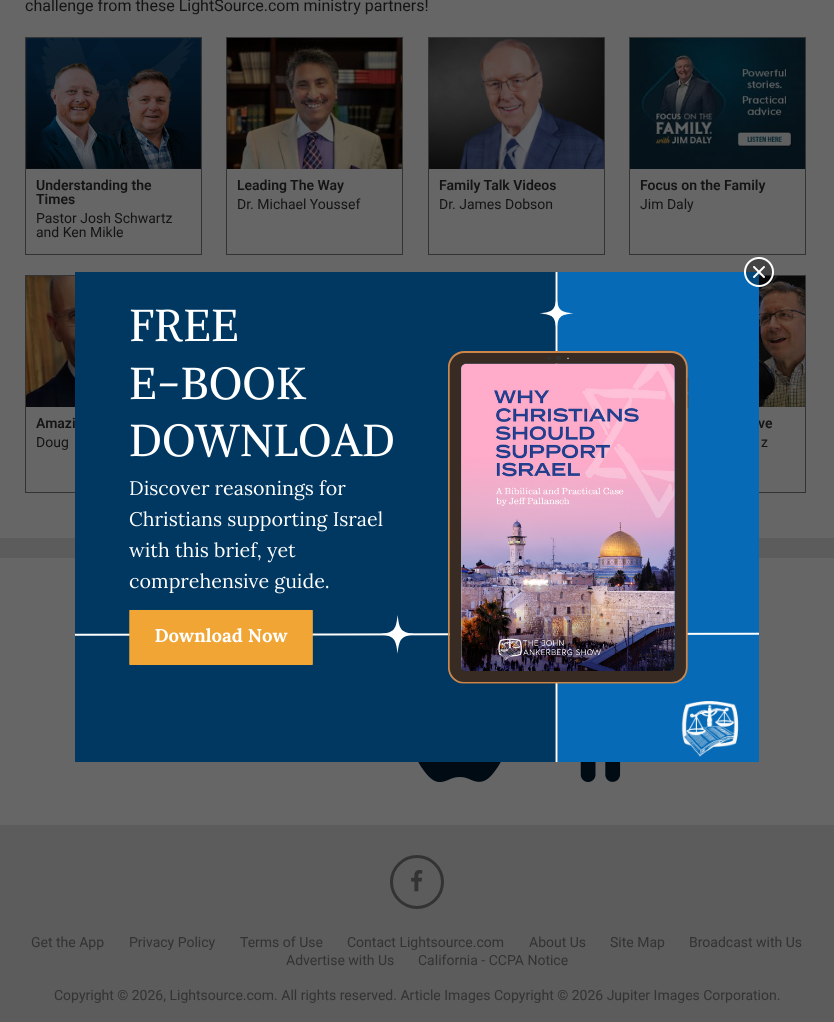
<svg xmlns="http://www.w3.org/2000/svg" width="834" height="1022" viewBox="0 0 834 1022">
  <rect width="100%" height="100%" fill="rgb(92,92,92)"/>
  <rect x="0" y="0" width="834" height="538" fill="rgb(102,102,102)"/>
  <text x="25" y="11" font-family="Roboto" font-size="16" fill="rgb(20,20,20)">challenge from these LightSource.com ministry partners!</text>
  <rect x="25.5" y="37.5" width="176" height="217" fill="none" stroke="rgb(51,51,51)"/>
  <image x="26" y="38" width="175" height="131" href="pic1.png"/>
  <g font-family="Roboto" font-size="14" font-weight="600" fill="rgb(20,20,20)">
    <text>
      <tspan x="36" y="190">Understanding the</tspan>
      <tspan x="36" y="204">Times</tspan>
    </text>
  </g>
  <g font-family="Roboto" font-size="14" fill="rgb(20,20,20)">
    <text>
      <tspan x="36" y="223">Pastor Josh Schwartz</tspan>
      <tspan x="36" y="237">and Ken Mikle</tspan>
    </text>
  </g>
  <rect x="226.5" y="37.5" width="176" height="217" fill="none" stroke="rgb(51,51,51)"/>
  <image x="227" y="38" width="175" height="131" href="pic2.png"/>
  <text x="237" y="190" font-family="Roboto" font-size="14" font-weight="600" fill="rgb(20,20,20)">Leading The Way</text>
  <text x="237" y="209" font-family="Roboto" font-size="14" fill="rgb(20,20,20)">Dr. Michael Youssef</text>
  <rect x="428.5" y="37.5" width="176" height="217" fill="none" stroke="rgb(51,51,51)"/>
  <image x="429" y="38" width="175" height="131" href="pic3.png"/>
  <text x="439" y="190" font-family="Roboto" font-size="14" font-weight="600" fill="rgb(20,20,20)">Family Talk Videos</text>
  <text x="439" y="209" font-family="Roboto" font-size="14" fill="rgb(20,20,20)">Dr. James Dobson</text>
  <rect x="629.5" y="37.5" width="176" height="217" fill="none" stroke="rgb(51,51,51)"/>
  <image x="630" y="38" width="175" height="131" href="pic4.png"/>
  <text x="640" y="190" font-family="Roboto" font-size="14" font-weight="600" fill="rgb(20,20,20)">Focus on the Family</text>
  <text x="640" y="209" font-family="Roboto" font-size="14" fill="rgb(20,20,20)">Jim Daly</text>
  <rect x="25.5" y="275.5" width="176" height="217" fill="none" stroke="rgb(51,51,51)"/>
  <image x="26" y="276" width="49" height="131" href="pic5.png"/>
  <text x="36" y="428" font-family="Roboto" font-size="14" font-weight="600" fill="rgb(20,20,20)">Amazi</text>
  <text x="36" y="447" font-family="Roboto" font-size="14" fill="rgb(20,20,20)">Doug</text>
  <rect x="629.5" y="275.5" width="176" height="217" fill="none" stroke="rgb(51,51,51)"/>
  <image x="759" y="276" width="46" height="131" href="pic6.png"/>
  <text x="758" y="428" font-family="Roboto" font-size="14" font-weight="600" fill="rgb(20,20,20)">ve</text>
  <text x="761" y="447" font-family="Roboto" font-size="14" fill="rgb(20,20,20)">z</text>
  <rect x="0" y="558" width="834" height="267" fill="rgb(102,102,102)"/>
  <image x="75" y="272" width="684" height="490" href="pic8.png"/>
  <image x="744" y="257" width="30" height="30" href="pic7.png"/>
  <image x="418" y="762" width="83" height="20" href="pic9.png"/>
  <image x="580" y="762" width="41" height="20" href="pic10.png"/>
  <circle cx="417" cy="882" r="25.5" fill="none" stroke="rgb(51,51,51)" stroke-width="3"/>
  <image x="411" y="870" width="12" height="22" href="pic11.png"/>
  <g font-family="Roboto" font-size="14" fill="rgb(51,51,51)">
    <text x="31" y="947">Get the App</text>
    <text x="129" y="947">Privacy Policy</text>
    <text x="240" y="947">Terms of Use</text>
    <text x="347" y="947">Contact Lightsource.com</text>
    <text x="529" y="947">About Us</text>
    <text x="610" y="947">Site Map</text>
    <text x="689" y="947">Broadcast with Us</text>
    <text x="286" y="965">Advertise with Us</text>
    <text x="418" y="965">California - CCPA Notice</text>
    <text x="54" y="1000">Copyright © 2026, Lightsource.com. All rights reserved. Article Images Copyright © 2026 Jupiter Images Corporation.</text>
  </g>
</svg>
